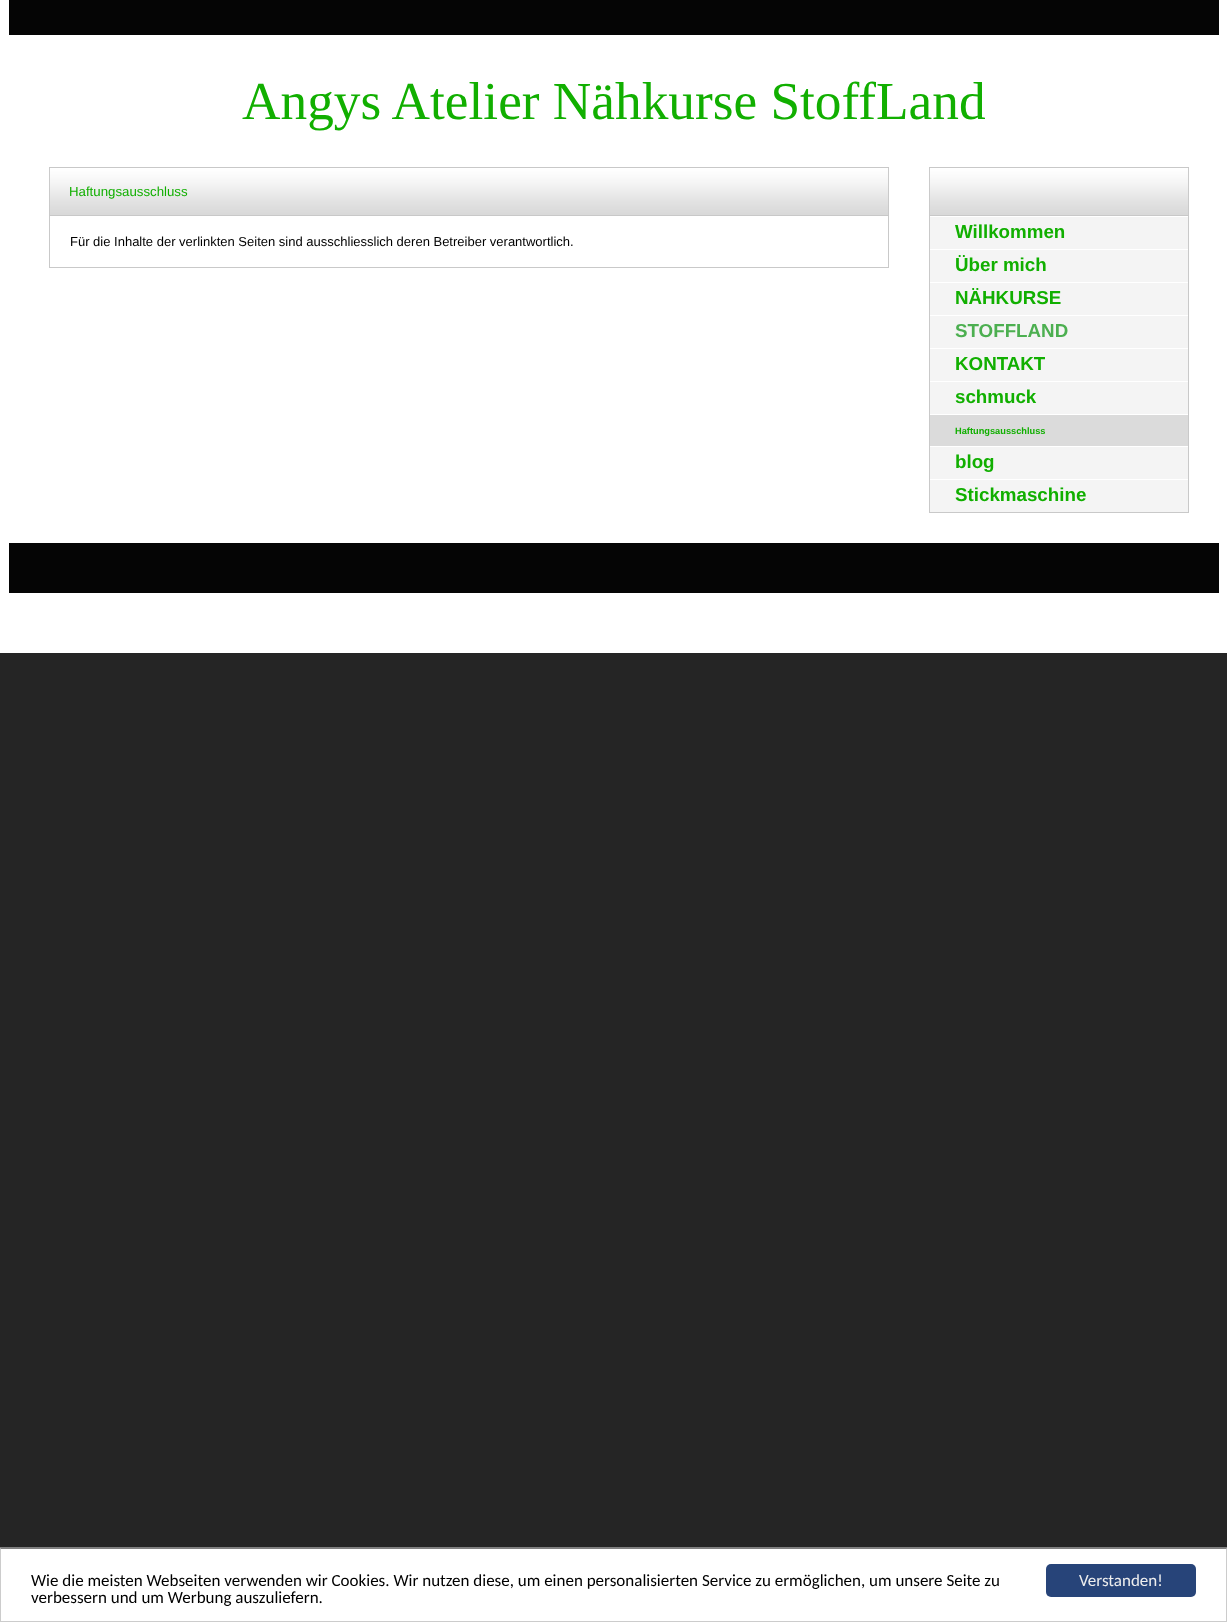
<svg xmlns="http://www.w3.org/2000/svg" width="1227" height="1622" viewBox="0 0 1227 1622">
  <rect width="100%" height="100%" fill="rgb(37,37,37)"/>
  <rect x="0" y="0" width="1227" height="653" fill="rgb(255,255,255)"/>
  <rect x="9" y="0" width="1210" height="35" fill="rgb(5,5,5)"/>
  <text x="242" y="119" font-family="Liberation Serif" font-size="53.3" fill="rgb(17,175,0)">Angys Atelier Nähkurse StoffLand</text>
  <image x="49" y="167" width="840" height="49" href="pic1.png"/>
  <rect x="49" y="168" width="1" height="47" fill="rgba(200,200,200,0.94)"/>
  <text x="69" y="196" font-family="Liberation Sans" font-size="13.25" fill="rgb(17,175,0)">Haftungsausschluss</text>
  <rect x="888" y="168" width="1" height="47" fill="rgba(200,200,200,0.94)"/>
  <rect x="888" y="216" width="1" height="52" fill="rgb(201,201,201)"/>
  <rect x="49" y="267" width="840" height="1" fill="rgb(201,201,201)"/>
  <rect x="49" y="216" width="1" height="52" fill="rgb(201,201,201)"/>
  <text x="70" y="246" font-family="Liberation Sans" font-size="13" fill="rgb(0,0,0)">Für die Inhalte der verlinkten Seiten sind ausschliesslich deren Betreiber verantwortlich.</text>
  <image x="929" y="167" width="260" height="49" href="pic2.png"/>
  <rect x="929" y="168" width="1" height="47" fill="rgba(200,200,200,0.94)"/>
  <rect x="1188" y="168" width="1" height="47" fill="rgba(200,200,200,0.94)"/>
  <rect x="1188" y="216" width="1" height="297" fill="rgb(201,201,201)"/>
  <rect x="929" y="512" width="260" height="1" fill="rgb(201,201,201)"/>
  <rect x="929" y="216" width="1" height="297" fill="rgb(201,201,201)"/>
  <rect x="930" y="217" width="258" height="32" fill="rgb(244,244,244)"/>
  <text x="955" y="238" font-family="Liberation Sans" font-size="18.75" font-weight="bold" fill="rgb(17,175,0)">Willkommen</text>
  <rect x="930" y="250" width="258" height="32" fill="rgb(244,244,244)"/>
  <text x="955" y="271" font-family="Liberation Sans" font-size="18.75" font-weight="bold" fill="rgb(17,175,0)">Über mich</text>
  <rect x="930" y="283" width="258" height="32" fill="rgb(244,244,244)"/>
  <text x="955" y="304" font-family="Liberation Sans" font-size="18.75" font-weight="bold" fill="rgb(17,175,0)">NÄHKURSE</text>
  <rect x="930" y="316" width="258" height="32" fill="rgb(244,244,244)"/>
  <text x="955" y="337" font-family="Liberation Sans" font-size="18.75" font-weight="bold" fill="rgb(76,175,80)">STOFFLAND</text>
  <rect x="930" y="349" width="258" height="32" fill="rgb(244,244,244)"/>
  <text x="955" y="370" font-family="Liberation Sans" font-size="18.75" font-weight="bold" fill="rgb(17,175,0)">KONTAKT</text>
  <rect x="930" y="382" width="258" height="32" fill="rgb(244,244,244)"/>
  <text x="955" y="403" font-family="Liberation Sans" font-size="18.75" font-weight="bold" fill="rgb(17,175,0)">schmuck</text>
  <rect x="930" y="415" width="258" height="31" fill="rgb(219,219,219)"/>
  <text x="955" y="434" font-family="Liberation Sans" font-size="9.25" font-weight="bold" fill="rgb(17,175,0)">Haftungsausschluss</text>
  <rect x="930" y="447" width="258" height="32" fill="rgb(244,244,244)"/>
  <text x="955" y="468" font-family="Liberation Sans" font-size="18.75" font-weight="bold" fill="rgb(17,175,0)">blog</text>
  <rect x="930" y="480" width="258" height="32" fill="rgb(244,244,244)"/>
  <text x="955" y="501" font-family="Liberation Sans" font-size="18.75" font-weight="bold" fill="rgb(17,175,0)">Stickmaschine</text>
  <rect x="9" y="543" width="1210" height="50" fill="rgb(5,5,5)"/>
  <rect x="1" y="1549" width="1225" height="72" fill="rgb(255,255,255)"/>
  <path d="M0 1547H1227L1226 1549H1Z" fill="rgb(128,128,128)"/>
  <path d="M1227 1547V1622L1226 1621V1549Z" fill="rgb(204,204,204)"/>
  <rect x="0" y="1621" width="1227" height="1" fill="rgb(204,204,204)"/>
  <path d="M0 1622V1547L1 1549V1621Z" fill="rgb(204,204,204)"/>
  <g font-family="Carlito" font-size="17" fill="rgb(0,0,0)">
    <text>
      <tspan x="31" y="1586">Wie die meisten Webseiten verwenden wir Cookies. Wir nutzen diese, um einen personalisierten Service zu ermöglichen, um unsere Seite zu</tspan>
      <tspan x="31" y="1603">verbessern und um Werbung auszuliefern.</tspan>
    </text>
  </g>
  <rect x="1046" y="1564" width="150" height="33" rx="5" fill="rgb(39,68,121)"/>
  <text x="1079" y="1586" font-family="Carlito" font-size="17" fill="rgb(238,238,238)">Verstanden!</text>
</svg>
